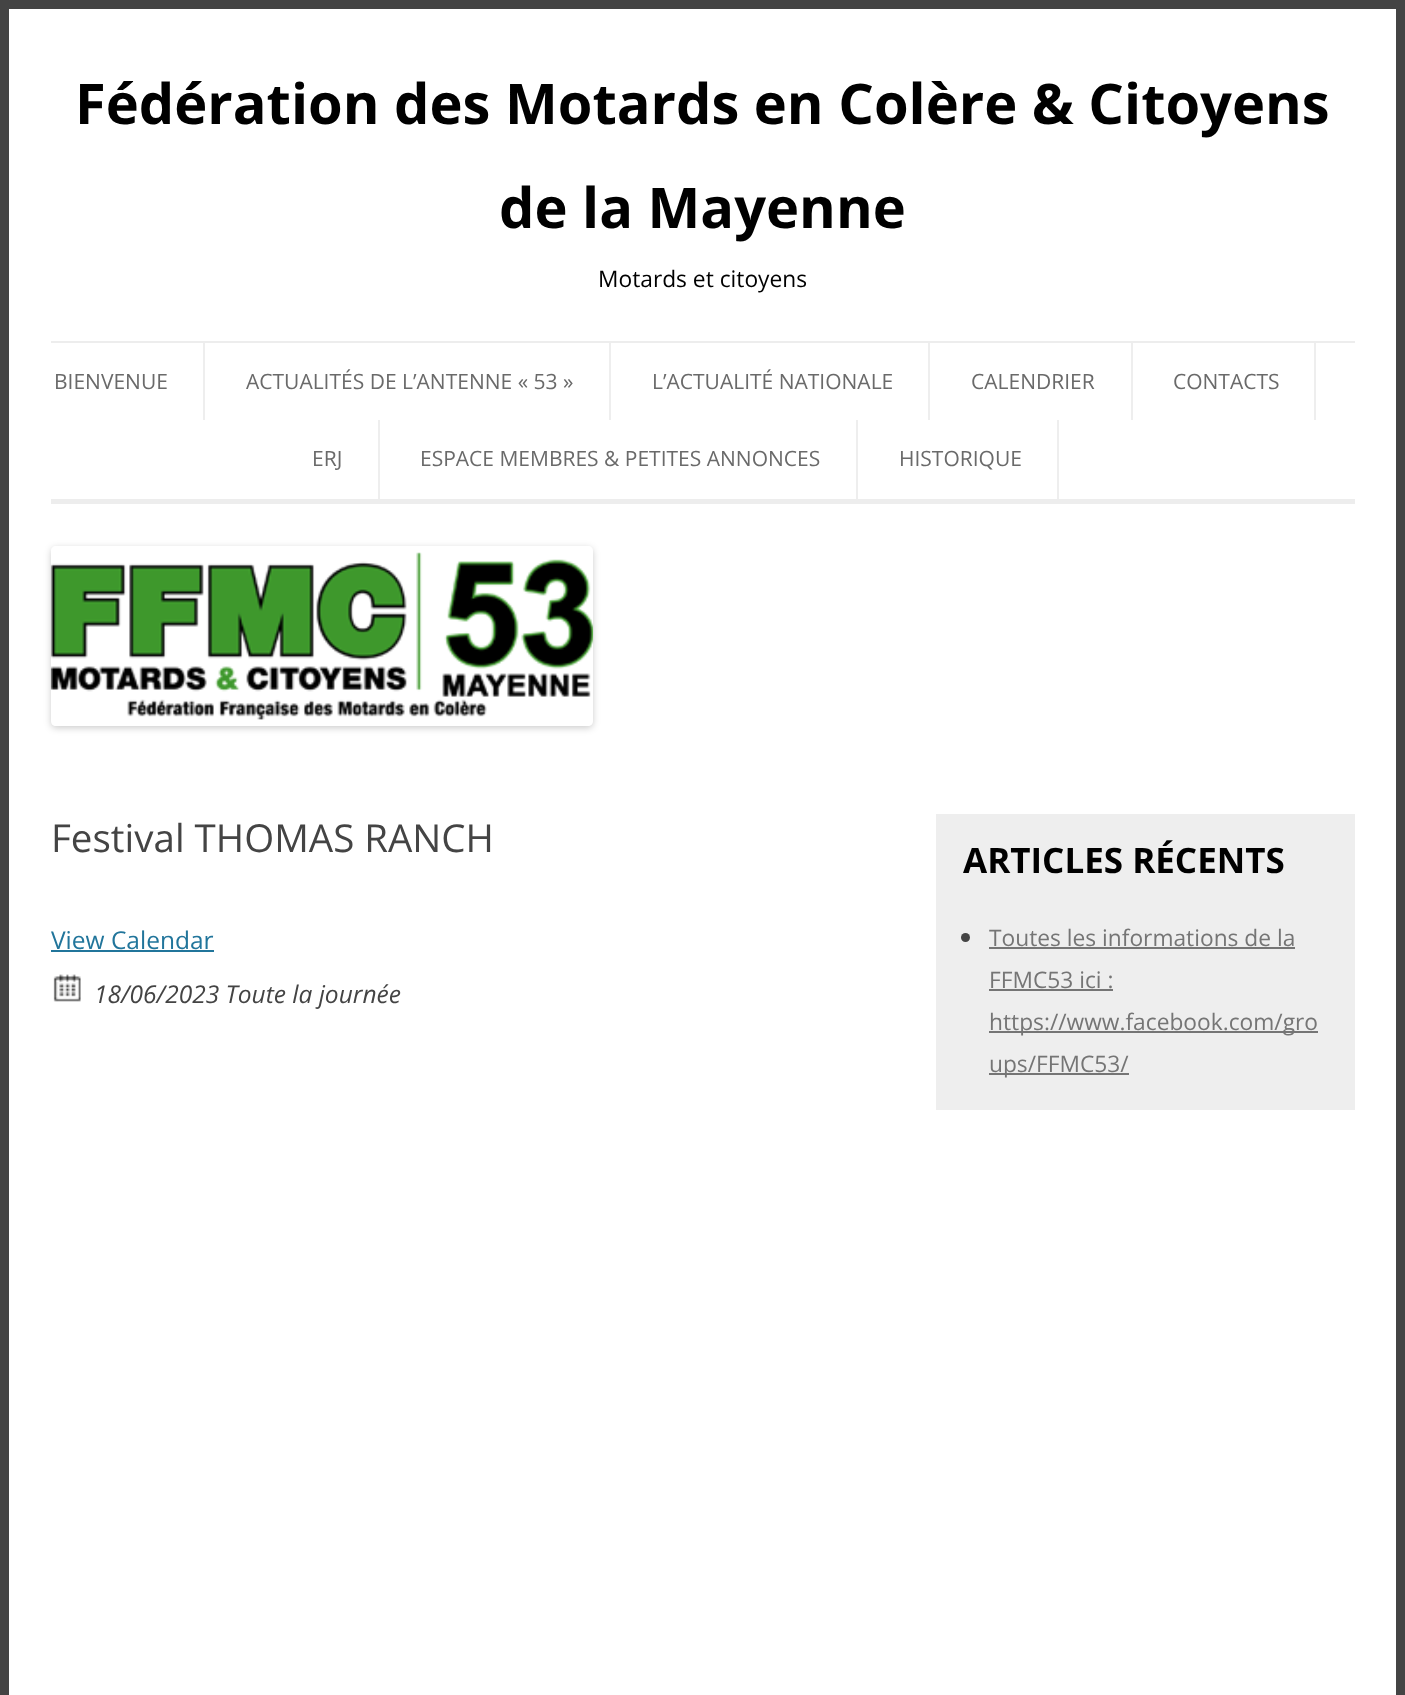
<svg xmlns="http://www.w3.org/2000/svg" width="1405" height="1695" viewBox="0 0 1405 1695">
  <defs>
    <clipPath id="clip1"><path d="M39 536H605V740H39ZM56 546H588C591 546 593 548 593 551V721C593 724 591 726 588 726H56C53 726 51 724 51 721V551C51 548 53 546 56 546Z" clip-rule="evenodd"/></clipPath>
  </defs>
  <rect width="100%" height="100%" fill="rgb(255,255,255)"/>
  <rect x="4.5" y="4.5" width="1396" height="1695" fill="none" stroke="rgb(68,68,68)" stroke-width="9"/>
  <g font-family="Open Sans" font-size="56" font-weight="bold" fill="rgb(0,0,0)">
    <text x="75" y="124">Fédération des Motards en Colère &amp; Citoyens</text>
    <text x="499" y="228">de la Mayenne</text>
  </g>
  <text x="598" y="287" font-family="Open Sans" font-size="22.75" fill="rgb(0,0,0)">Motards et citoyens</text>
  <rect x="51" y="341" width="1304" height="2" fill="rgb(237,237,237)"/>
  <rect x="51" y="499" width="1304" height="5" fill="rgb(237,237,237)"/>
  <rect x="203" y="343" width="2" height="77" fill="rgb(238,238,238)"/>
  <text x="54" y="389" font-family="Open Sans" font-size="21" fill="rgb(106,106,106)">BIENVENUE</text>
  <rect x="609" y="343" width="2" height="77" fill="rgb(238,238,238)"/>
  <text x="246" y="389" font-family="Open Sans" font-size="21" fill="rgb(106,106,106)">ACTUALITÉS DE L’ANTENNE « 53 »</text>
  <rect x="928" y="343" width="2" height="77" fill="rgb(238,238,238)"/>
  <text x="652" y="389" font-family="Open Sans" font-size="21" fill="rgb(106,106,106)">L’ACTUALITÉ NATIONALE</text>
  <rect x="1131" y="343" width="2" height="77" fill="rgb(238,238,238)"/>
  <text x="971" y="389" font-family="Open Sans" font-size="21" fill="rgb(106,106,106)">CALENDRIER</text>
  <rect x="1314" y="343" width="2" height="77" fill="rgb(238,238,238)"/>
  <text x="1173" y="389" font-family="Open Sans" font-size="21" fill="rgb(106,106,106)">CONTACTS</text>
  <rect x="378" y="420" width="2" height="79" fill="rgb(238,238,238)"/>
  <text x="312" y="466" font-family="Open Sans" font-size="21" fill="rgb(106,106,106)">ERJ</text>
  <rect x="856" y="420" width="2" height="79" fill="rgb(238,238,238)"/>
  <text x="420" y="466" font-family="Open Sans" font-size="21" fill="rgb(106,106,106)">ESPACE MEMBRES &amp; PETITES ANNONCES</text>
  <rect x="1057" y="420" width="2" height="79" fill="rgb(238,238,238)"/>
  <text x="899" y="466" font-family="Open Sans" font-size="21" fill="rgb(106,106,106)">HISTORIQUE</text>
  <g clip-path="url(#clip1)">
    <rect x="51" y="548" width="542" height="180" rx="5" fill="rgba(0,0,0,0.2)" filter="blur(3.5px)"/>
  </g>
  <image x="50" y="552" width="544" height="168" href="pic1.png"/>
  <text x="51" y="852" font-family="Open Sans" font-size="38.5" fill="rgb(68,68,68)">Festival THOMAS RANCH</text>
  <text x="51" y="949" font-family="Open Sans" font-size="24.5" fill="rgb(33,117,155)">View Calendar</text>
  <rect x="51" y="950" width="163" height="2" fill="rgb(33,117,155)"/>
  <image x="53" y="974" width="28" height="28" href="pic2.png"/>
  <text x="94" y="1003" font-family="Open Sans" font-size="24.5" font-style="italic" fill="rgb(68,68,68)">18/06/2023 Toute la journée</text>
  <rect x="936" y="814" width="419" height="296" fill="rgb(238,238,238)"/>
  <text x="963" y="873" font-family="Open Sans" font-size="35" font-weight="bold" fill="rgb(0,0,0)">ARTICLES RÉCENTS</text>
  <circle cx="965.5" cy="937.5" r="4.5" fill="rgb(68,68,68)"/>
  <text x="989" y="946" font-family="Open Sans" font-size="22.75" fill="rgb(117,117,117)">Toutes les informations de la</text>
  <rect x="989" y="947" width="306" height="2" fill="rgb(117,117,117)"/>
  <text x="989" y="988" font-family="Open Sans" font-size="22.75" fill="rgb(117,117,117)">FFMC53 ici :</text>
  <rect x="989" y="989" width="124" height="2" fill="rgb(117,117,117)"/>
  <rect x="989" y="1031" width="329" height="2" fill="rgb(117,117,117)"/>
  <text x="989" y="1030" font-family="Open Sans" font-size="22.75" fill="rgb(117,117,117)">https://www.facebook.com/gro</text>
  <rect x="989" y="1073" width="140" height="2" fill="rgb(117,117,117)"/>
  <text x="989" y="1072" font-family="Open Sans" font-size="22.75" fill="rgb(117,117,117)">ups/FFMC53/</text>
</svg>
